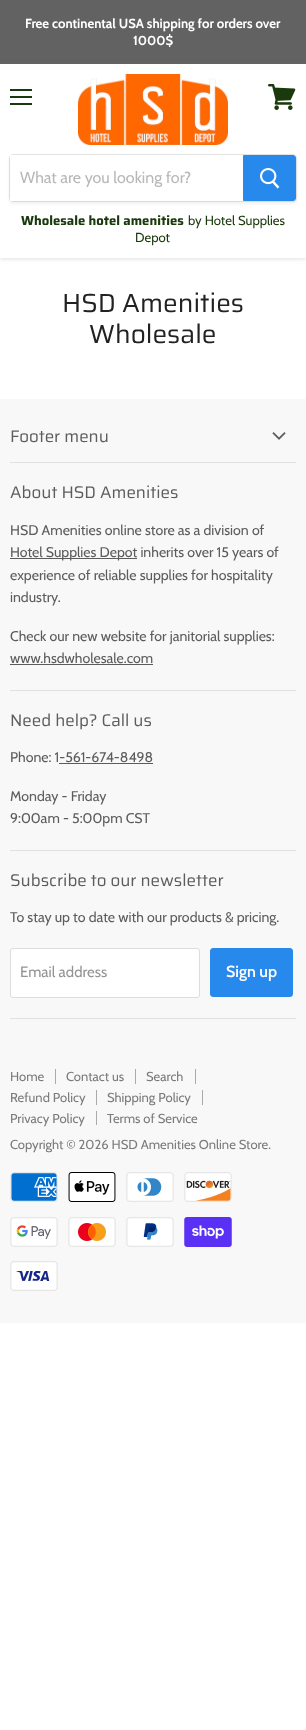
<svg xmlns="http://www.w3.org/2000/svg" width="306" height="1730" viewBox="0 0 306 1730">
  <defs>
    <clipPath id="clip1"><path d="M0 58H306V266H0ZM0 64H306V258H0Z" clip-rule="evenodd"/></clipPath>
  </defs>
  <rect width="100%" height="100%" fill="rgb(255,255,255)"/>
  <rect x="0" y="0" width="306" height="64" fill="rgb(98,98,98)"/>
  <g font-family="Cabin" font-size="13.1" font-weight="bold" fill="rgb(255,255,255)">
    <text x="25" y="28">Free continental USA shipping for orders over</text>
    <text x="133" y="45">1000$</text>
  </g>
  <g clip-path="url(#clip1)">
    <rect x="0" y="65" width="306" height="194" fill="rgba(127,127,127,0.25)" filter="blur(2px)"/>
  </g>
  <rect x="10" y="89" width="22" height="2" fill="rgb(26,57,12)"/>
  <rect x="10" y="96" width="22" height="2" fill="rgb(26,57,12)"/>
  <rect x="10" y="103" width="22" height="2" fill="rgb(26,57,12)"/>
  <image x="268" y="84" width="28" height="26" href="pic1.png"/>
  <image x="78" y="74" width="150" height="71" href="pic2.png"/>
  <rect x="9" y="156" width="288" height="48" rx="4" fill="rgba(127,127,127,0.11)" filter="blur(1.5px)"/>
  <rect x="9.5" y="154.5" width="287" height="47" rx="3.5" fill="none" stroke="rgba(127,127,127,0.2)"/>
  <rect x="10" y="155" width="233" height="46" fill="rgb(255,255,255)"/>
  <text x="20" y="183" font-family="Cabin" font-size="16" fill="rgb(184,184,184)">What are you looking for?</text>
  <path d="M243.5 155.5H293C294.5 155.5 295.5 156.5 295.5 158V198C295.5 199.5 294.5 200.5 293 200.5H243.5Z" fill="rgb(40,137,237)" stroke="rgb(40,137,237)"/>
  <image x="260" y="168" width="20" height="21" href="pic3.png"/>
  <text x="21" y="225" font-family="Saira" font-size="13.1" font-weight="bold" fill="rgb(26,57,12)">Wholesale hotel amenities</text>
  <g font-family="Cabin" font-size="13.1" fill="rgb(26,57,12)">
    <text x="188" y="225">by Hotel Supplies</text>
    <text x="135" y="242">Depot</text>
  </g>
  <g font-family="Saira" font-size="26.25" fill="rgb(34,34,34)">
    <text x="62" y="312">HSD Amenities</text>
    <text x="89" y="343">Wholesale</text>
  </g>
  <rect x="0" y="399" width="306" height="924" fill="rgb(248,248,248)"/>
  <rect x="10" y="462" width="286" height="1" fill="rgb(225,225,225)"/>
  <text x="10" y="442" font-family="Saira" font-size="16.9" fill="rgb(92,92,92)">Footer menu</text>
  <image x="272" y="432" width="14" height="8" href="pic4.png"/>
  <rect x="10" y="690" width="286" height="1" fill="rgb(225,225,225)"/>
  <text x="10" y="498" font-family="Saira" font-size="16.9" fill="rgb(92,92,92)">About HSD Amenities</text>
  <text x="10" y="535" font-family="Cabin" font-size="14.1" fill="rgb(92,92,92)">HSD Amenities online store as a division of</text>
  <rect x="10" y="558" width="127" height="1" fill="rgb(92,92,92)"/>
  <g font-family="Cabin" font-size="14.1" fill="rgb(92,92,92)">
    <text>
      <tspan x="10" y="557">Hotel Supplies Depot inherits over 15 years of</tspan>
      <tspan x="10" y="580">experience of reliable supplies for hospitality</tspan>
      <tspan x="10" y="602">industry.</tspan>
    </text>
    <text>
      <tspan x="10" y="641">Check our new website for janitorial supplies:</tspan>
      <tspan x="10" y="663">www.hsdwholesale.com</tspan>
    </text>
  </g>
  <rect x="10" y="664" width="143" height="1" fill="rgb(92,92,92)"/>
  <rect x="10" y="850" width="286" height="1" fill="rgb(225,225,225)"/>
  <text x="10" y="726" font-family="Saira" font-size="16.9" fill="rgb(92,92,92)">Need help? Call us</text>
  <text x="10" y="762" font-family="Cabin" font-size="14.1" fill="rgb(92,92,92)">Phone: 1-561-674-8498</text>
  <rect x="59" y="763" width="94" height="1" fill="rgb(92,92,92)"/>
  <g font-family="Cabin" font-size="14.1" fill="rgb(92,92,92)">
    <text>
      <tspan x="10" y="801">Monday - Friday</tspan>
      <tspan x="10" y="823">9:00am - 5:00pm CST</tspan>
    </text>
  </g>
  <rect x="10" y="1018" width="286" height="1" fill="rgb(225,225,225)"/>
  <text x="10" y="886" font-family="Saira" font-size="16.9" fill="rgb(92,92,92)">Subscribe to our newsletter</text>
  <text x="10" y="922" font-family="Cabin" font-size="14.1" fill="rgb(92,92,92)">To stay up to date with our products &amp; pricing.</text>
  <rect x="10.5" y="948.5" width="189" height="49" rx="2.5" fill="rgb(255,255,255)" stroke="rgb(221,221,221)"/>
  <text x="20" y="977" font-family="Cabin" font-size="15" fill="rgb(148,148,148)">Email address</text>
  <rect x="210.5" y="948.5" width="82" height="48" rx="2.5" fill="rgb(40,137,237)" stroke="rgb(40,137,237)"/>
  <text x="226" y="977" font-family="Cabin" font-size="16" font-weight="600" fill="rgb(255,255,255)">Sign up</text>
  <rect x="55" y="1069" width="1" height="15" fill="rgb(170,170,170)"/>
  <text x="10" y="1081" font-family="Cabin" font-size="13" fill="rgb(123,123,123)">Home</text>
  <rect x="135" y="1069" width="1" height="15" fill="rgb(170,170,170)"/>
  <text x="66" y="1081" font-family="Cabin" font-size="13" fill="rgb(123,123,123)">Contact us</text>
  <rect x="195" y="1069" width="1" height="15" fill="rgb(170,170,170)"/>
  <text x="146" y="1081" font-family="Cabin" font-size="13" fill="rgb(123,123,123)">Search</text>
  <rect x="96" y="1090" width="1" height="15" fill="rgb(170,170,170)"/>
  <text x="10" y="1102" font-family="Cabin" font-size="13" fill="rgb(123,123,123)">Refund Policy</text>
  <rect x="202" y="1090" width="1" height="15" fill="rgb(170,170,170)"/>
  <text x="107" y="1102" font-family="Cabin" font-size="13" fill="rgb(123,123,123)">Shipping Policy</text>
  <rect x="96" y="1111" width="1" height="14" fill="rgb(170,170,170)"/>
  <g font-family="Cabin" font-size="13" fill="rgb(123,123,123)">
    <text x="10" y="1123">Privacy Policy</text>
    <text x="107" y="1123">Terms of Service</text>
    <text x="10" y="1149">Copyright © 2026 HSD Amenities Online Store.</text>
  </g>
  <image x="10" y="1172" width="48" height="30" href="pic5.png"/>
  <image x="68" y="1172" width="48" height="30" href="pic6.png"/>
  <image x="126" y="1172" width="48" height="30" href="pic7.png"/>
  <image x="184" y="1172" width="48" height="30" href="pic8.png"/>
  <image x="10" y="1217" width="48" height="30" href="pic9.png"/>
  <image x="68" y="1217" width="48" height="30" href="pic10.png"/>
  <image x="126" y="1217" width="48" height="30" href="pic11.png"/>
  <image x="184" y="1217" width="48" height="30" href="pic12.png"/>
  <image x="10" y="1261" width="48" height="30" href="pic13.png"/>
</svg>
